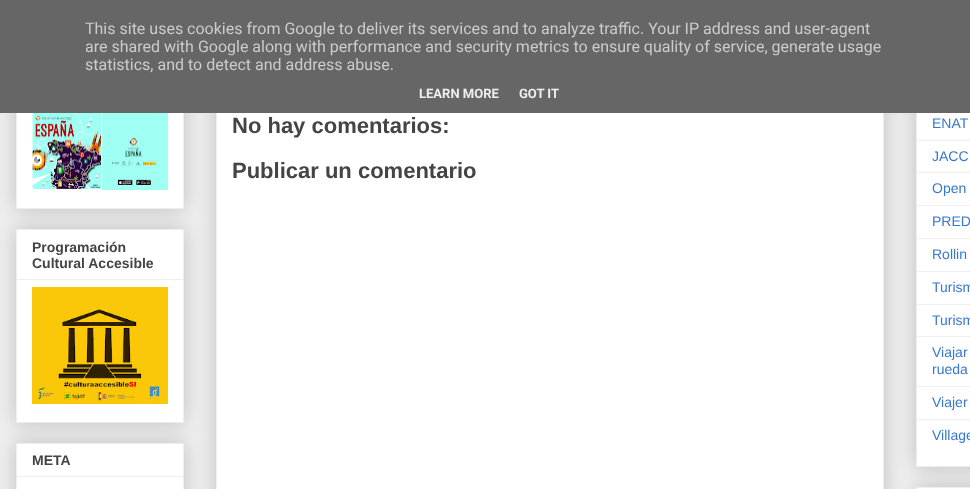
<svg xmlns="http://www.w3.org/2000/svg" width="970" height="489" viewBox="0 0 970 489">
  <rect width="100%" height="100%" fill="rgb(238,238,238)"/>
  <rect x="16" y="56" width="168" height="153" fill="rgba(0,0,0,0.2)" filter="blur(10px)"/>
  <rect x="17" y="113" width="166" height="95" fill="rgb(255,255,255)"/>
  <rect x="16.5" y="56.5" width="167" height="152" fill="none" stroke="rgb(238,238,238)"/>
  <rect x="216" y="-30" width="668" height="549" fill="rgba(0,0,0,0.2)" filter="blur(10px)"/>
  <rect x="217" y="113" width="666" height="376" fill="rgb(255,255,255)"/>
  <rect x="216.5" y="-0.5" width="667" height="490" fill="none" stroke="rgb(238,238,238)"/>
  <rect x="916" y="-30" width="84" height="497" fill="rgba(0,0,0,0.2)" filter="blur(10px)"/>
  <rect x="917" y="113" width="53" height="353" fill="rgb(255,255,255)"/>
  <rect x="916.5" y="-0.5" width="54" height="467" fill="none" stroke="rgb(238,238,238)"/>
  <rect x="0" y="0" width="970" height="113" fill="rgb(102,102,102)"/>
  <g font-family="Roboto" font-size="16" fill="rgb(204,204,204)">
    <text>
      <tspan x="85" y="34">This site uses cookies from Google to deliver its services and to analyze traffic. Your IP address and user-agent</tspan>
      <tspan x="85" y="52">are shared with Google along with performance and security metrics to ensure quality of service, generate usage</tspan>
      <tspan x="85" y="70">statistics, and to detect and address abuse.</tspan>
    </text>
  </g>
  <g font-family="Roboto" font-size="13" font-weight="bold" fill="rgb(238,238,238)">
    <text x="419" y="98">LEARN MORE</text>
    <text x="519" y="98">GOT IT</text>
  </g>
  <image x="32" y="113" width="136" height="77" href="pic1.png"/>
  <rect x="16" y="229" width="168" height="194" fill="rgba(0,0,0,0.2)" filter="blur(10px)"/>
  <rect x="16.5" y="229.5" width="167" height="193" fill="rgb(255,255,255)" stroke="rgb(238,238,238)"/>
  <g font-family="Liberation Sans" font-size="14" font-weight="bold" fill="rgb(68,68,68)">
    <text>
      <tspan x="32" y="252">Programación</tspan>
      <tspan x="32" y="268">Cultural Accesible</tspan>
    </text>
  </g>
  <rect x="17" y="279" width="166" height="1" fill="rgb(238,238,238)"/>
  <image x="32" y="287" width="136" height="117" href="pic2.png"/>
  <rect x="16" y="443" width="168" height="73" fill="rgba(0,0,0,0.2)" filter="blur(10px)"/>
  <rect x="16.5" y="443.5" width="167" height="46" fill="rgb(255,255,255)" stroke="rgb(238,238,238)"/>
  <text x="32" y="465" font-family="Liberation Sans" font-size="14" font-weight="bold" fill="rgb(68,68,68)">META</text>
  <rect x="17" y="476" width="166" height="1" fill="rgb(238,238,238)"/>
  <g font-family="Liberation Sans" font-size="22" font-weight="bold" fill="rgb(68,68,68)">
    <text x="232" y="133">No hay comentarios:</text>
    <text x="232" y="178">Publicar un comentario</text>
  </g>
  <text x="932" y="128" font-family="Liberation Sans" font-size="14" fill="rgb(55,120,205)">ENAT</text>
  <rect x="917" y="140" width="53" height="1" fill="rgb(238,238,238)"/>
  <text x="932" y="161" font-family="Liberation Sans" font-size="14" fill="rgb(55,120,205)">JACC</text>
  <rect x="917" y="172" width="53" height="1" fill="rgb(238,238,238)"/>
  <text x="932" y="193" font-family="Liberation Sans" font-size="14" fill="rgb(55,120,205)">Open</text>
  <rect x="917" y="205" width="53" height="1" fill="rgb(238,238,238)"/>
  <text x="932" y="226" font-family="Liberation Sans" font-size="14" fill="rgb(55,120,205)">PRED</text>
  <rect x="917" y="238" width="53" height="1" fill="rgb(238,238,238)"/>
  <text x="932" y="259" font-family="Liberation Sans" font-size="14" fill="rgb(55,120,205)">Rollin</text>
  <rect x="917" y="271" width="53" height="1" fill="rgb(238,238,238)"/>
  <text x="932" y="292" font-family="Liberation Sans" font-size="14" fill="rgb(55,120,205)">Turism</text>
  <rect x="917" y="304" width="53" height="1" fill="rgb(238,238,238)"/>
  <text x="932" y="325" font-family="Liberation Sans" font-size="14" fill="rgb(55,120,205)">Turism</text>
  <rect x="917" y="336" width="53" height="1" fill="rgb(238,238,238)"/>
  <g font-family="Liberation Sans" font-size="14" fill="rgb(55,120,205)">
    <text>
      <tspan x="932" y="357">Viajar</tspan>
      <tspan x="932" y="374">rueda</tspan>
    </text>
  </g>
  <rect x="917" y="386" width="53" height="1" fill="rgb(238,238,238)"/>
  <text x="932" y="407" font-family="Liberation Sans" font-size="14" fill="rgb(55,120,205)">Viajer</text>
  <rect x="917" y="419" width="53" height="1" fill="rgb(238,238,238)"/>
  <text x="932" y="440" font-family="Liberation Sans" font-size="14" fill="rgb(55,120,205)">Village</text>
  <rect x="916" y="487" width="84" height="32" fill="rgba(0,0,0,0.2)" filter="blur(10px)"/>
  <rect x="916.5" y="487.5" width="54" height="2" fill="rgb(255,255,255)" stroke="rgb(238,238,238)"/>
</svg>
